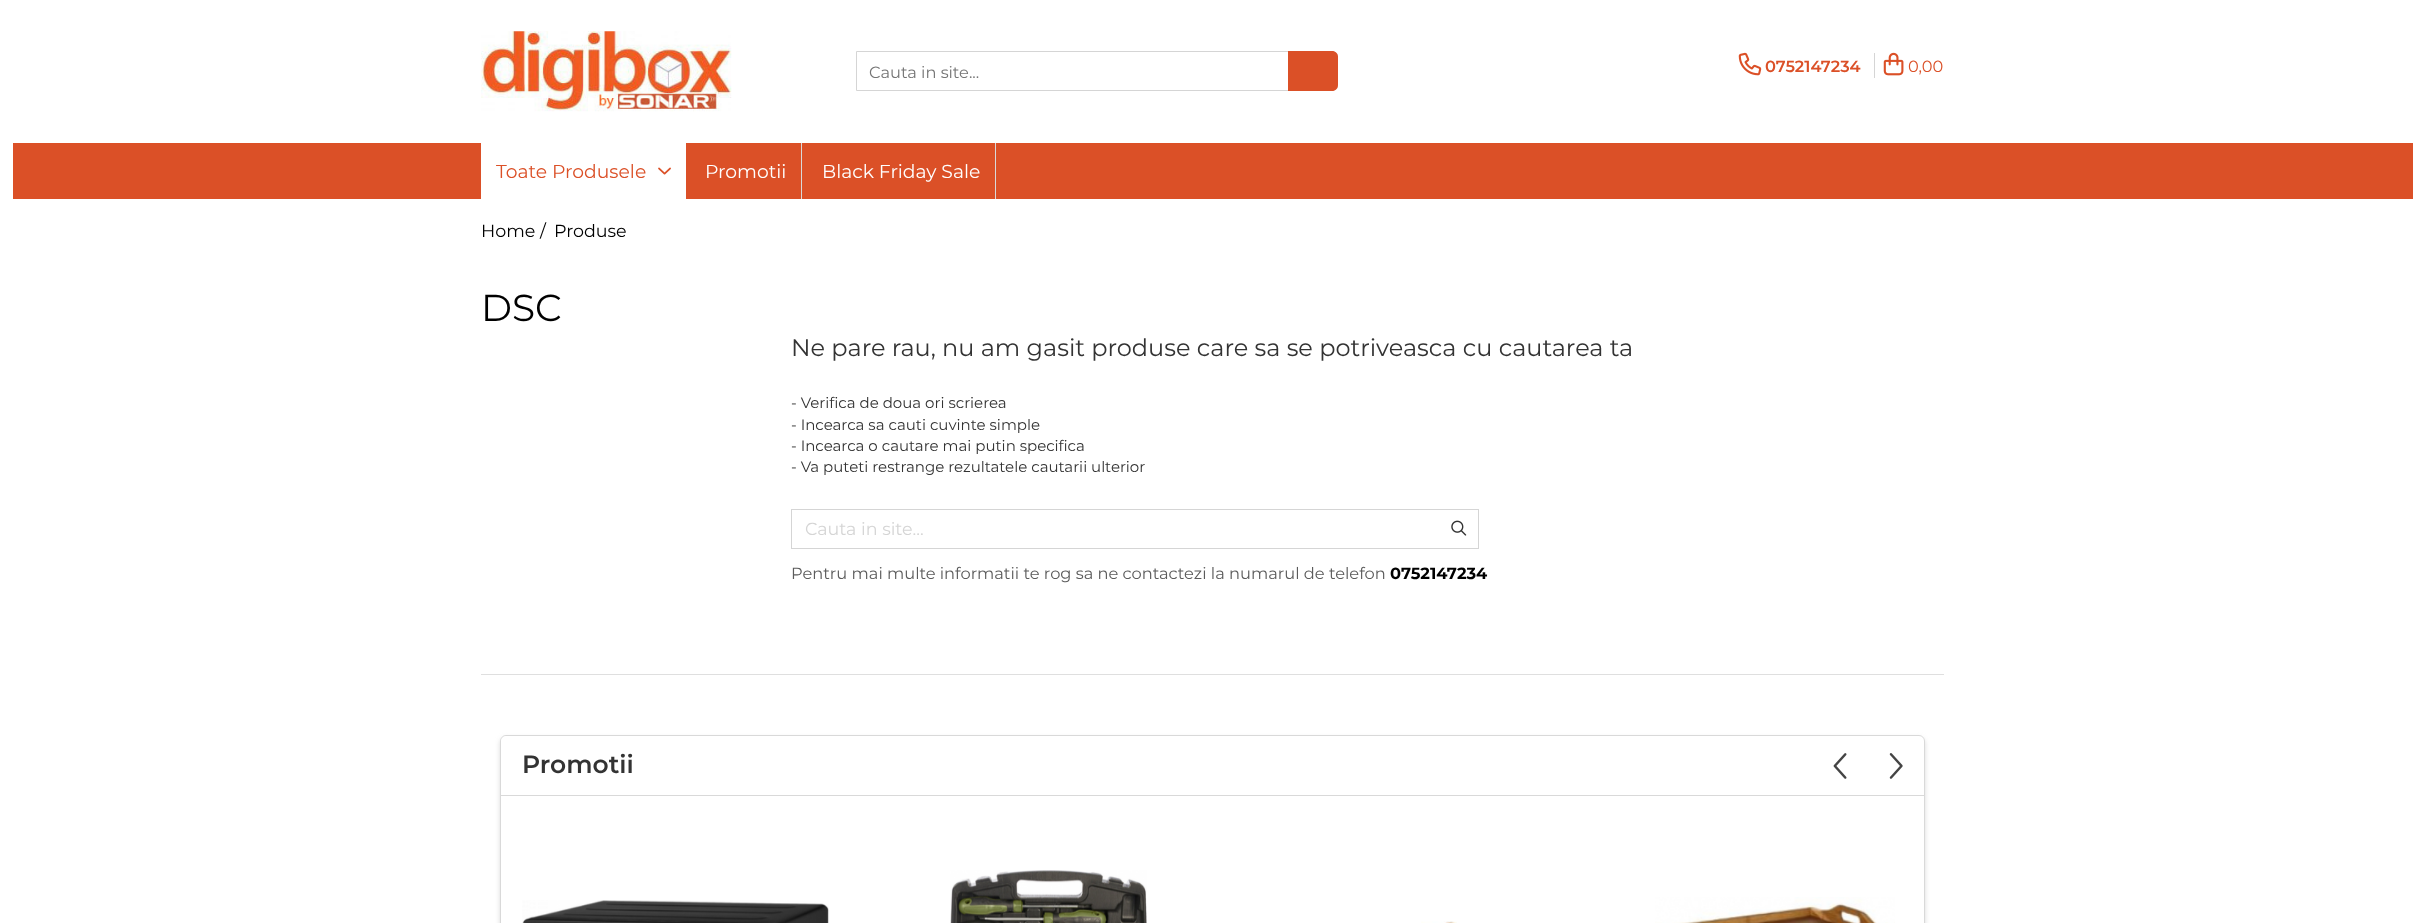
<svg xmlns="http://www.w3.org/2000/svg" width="2423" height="923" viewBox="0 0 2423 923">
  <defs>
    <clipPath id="clip1"><path d="M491 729H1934V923H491ZM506 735H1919C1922.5 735 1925 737.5 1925 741V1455C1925 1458.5 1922.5 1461 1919 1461H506C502.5 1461 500 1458.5 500 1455V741C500 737.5 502.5 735 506 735Z" clip-rule="evenodd"/></clipPath>
  </defs>
  <rect width="100%" height="100%" fill="rgb(255,255,255)"/>
  <image x="481" y="31" width="251" height="81" href="pic1.png"/>
  <path d="M856.5 51.5H1332C1335 51.5 1337.5 54 1337.5 57V85C1337.5 88 1335 90.5 1332 90.5H856.5Z" fill="none" stroke="rgb(213,213,213)"/>
  <text x="869" y="78" font-family="Montserrat" font-size="16.25" fill="rgb(117,117,117)">Cauta in site...</text>
  <path d="M1288 51H1332C1335.5 51 1338 53.5 1338 57V85C1338 88.5 1335.5 91 1332 91H1288Z" fill="rgb(219,80,39)"/>
  <image x="1738" y="52" width="24" height="24" href="pic2.png"/>
  <text x="1765" y="72" font-family="Montserrat" font-size="16.25" font-weight="600" fill="rgb(219,80,39)">0752147234</text>
  <rect x="1874" y="53" width="1" height="25" fill="rgb(213,213,213)"/>
  <image x="1883" y="52" width="21" height="24" href="pic3.png"/>
  <text x="1908" y="72" font-family="Montserrat" font-size="16.25" fill="rgb(219,80,39)">0,00</text>
  <rect x="13" y="143" width="2400" height="56" fill="rgb(219,80,39)"/>
  <rect x="481" y="143" width="205" height="56" fill="rgb(255,255,255)"/>
  <text x="496" y="178" font-family="Montserrat" font-size="18.75" fill="rgb(219,80,39)">Toate Produsele</text>
  <image x="658" y="167" width="13" height="8" href="pic4.png"/>
  <rect x="801" y="143" width="1" height="56" fill="rgb(217,217,217)"/>
  <text x="705" y="178" font-family="Montserrat" font-size="18.75" fill="rgb(255,255,255)">Promotii</text>
  <rect x="995" y="143" width="1" height="56" fill="rgb(217,217,217)"/>
  <text x="822" y="178" font-family="Montserrat" font-size="18.75" fill="rgb(255,255,255)">Black Friday Sale</text>
  <g font-family="Montserrat" font-size="17.5" fill="rgb(0,0,0)">
    <text x="481" y="237">Home /</text>
    <text x="554" y="237">Produse</text>
  </g>
  <text x="481" y="321" font-family="Montserrat" font-size="37.5" fill="rgb(0,0,0)">DSC</text>
  <rect x="481" y="674" width="1463" height="1" fill="rgb(223,223,223)"/>
  <text x="791" y="356" font-family="Montserrat" font-size="24" fill="rgb(51,51,51)">Ne pare rau, nu am gasit produse care sa se potriveasca cu cautarea ta</text>
  <g font-family="Montserrat" font-size="15" fill="rgb(51,51,51)">
    <text>
      <tspan x="791" y="408">- Verifica de doua ori scrierea</tspan>
      <tspan x="791" y="430">- Incearca sa cauti cuvinte simple</tspan>
      <tspan x="791" y="451">- Incearca o cautare mai putin specifica</tspan>
      <tspan x="791" y="472">- Va puteti restrange rezultatele cautarii ulterior</tspan>
    </text>
  </g>
  <rect x="791.5" y="509.5" width="687" height="39" fill="none" stroke="rgb(213,213,213)"/>
  <text x="805" y="535" font-family="Montserrat" font-size="17.5" fill="rgb(213,213,213)">Cauta in site...</text>
  <image x="1451" y="520" width="16" height="16" href="pic5.png"/>
  <text x="791" y="579" font-family="Montserrat" font-size="16.25" fill="rgb(91,91,91)">Pentru mai multe informatii te rog sa ne contactezi la numarul de telefon</text>
  <text x="1390" y="579" font-family="Montserrat" font-size="16.25" font-weight="bold" fill="rgb(0,0,0)">0752147234</text>
  <g clip-path="url(#clip1)">
    <rect x="500" y="738" width="1425" height="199" rx="6" fill="rgb(217,217,217)" filter="blur(2.5px)"/>
  </g>
  <rect x="500.5" y="735.5" width="1424" height="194" rx="5.5" fill="none" stroke="rgb(217,217,217)"/>
  <image x="1833" y="753" width="14" height="26" href="pic6.png"/>
  <image x="1889" y="753" width="14" height="26" href="pic7.png"/>
  <image x="522" y="900" width="307" height="23" href="pic8.png"/>
  <image x="950" y="870" width="197" height="53" href="pic9.png"/>
  <image x="1421" y="921" width="36" height="2" href="pic10.png"/>
  <image x="1655" y="897" width="240" height="26" href="pic11.png"/>
  <rect x="501" y="795" width="1423" height="1" fill="rgb(217,217,217)"/>
  <rect x="501" y="736" width="154" height="59" rx="6" fill="rgb(255,255,255)"/>
  <text x="522" y="773" font-family="Montserrat" font-size="25" font-weight="600" fill="rgb(51,51,51)">Promotii</text>
</svg>
